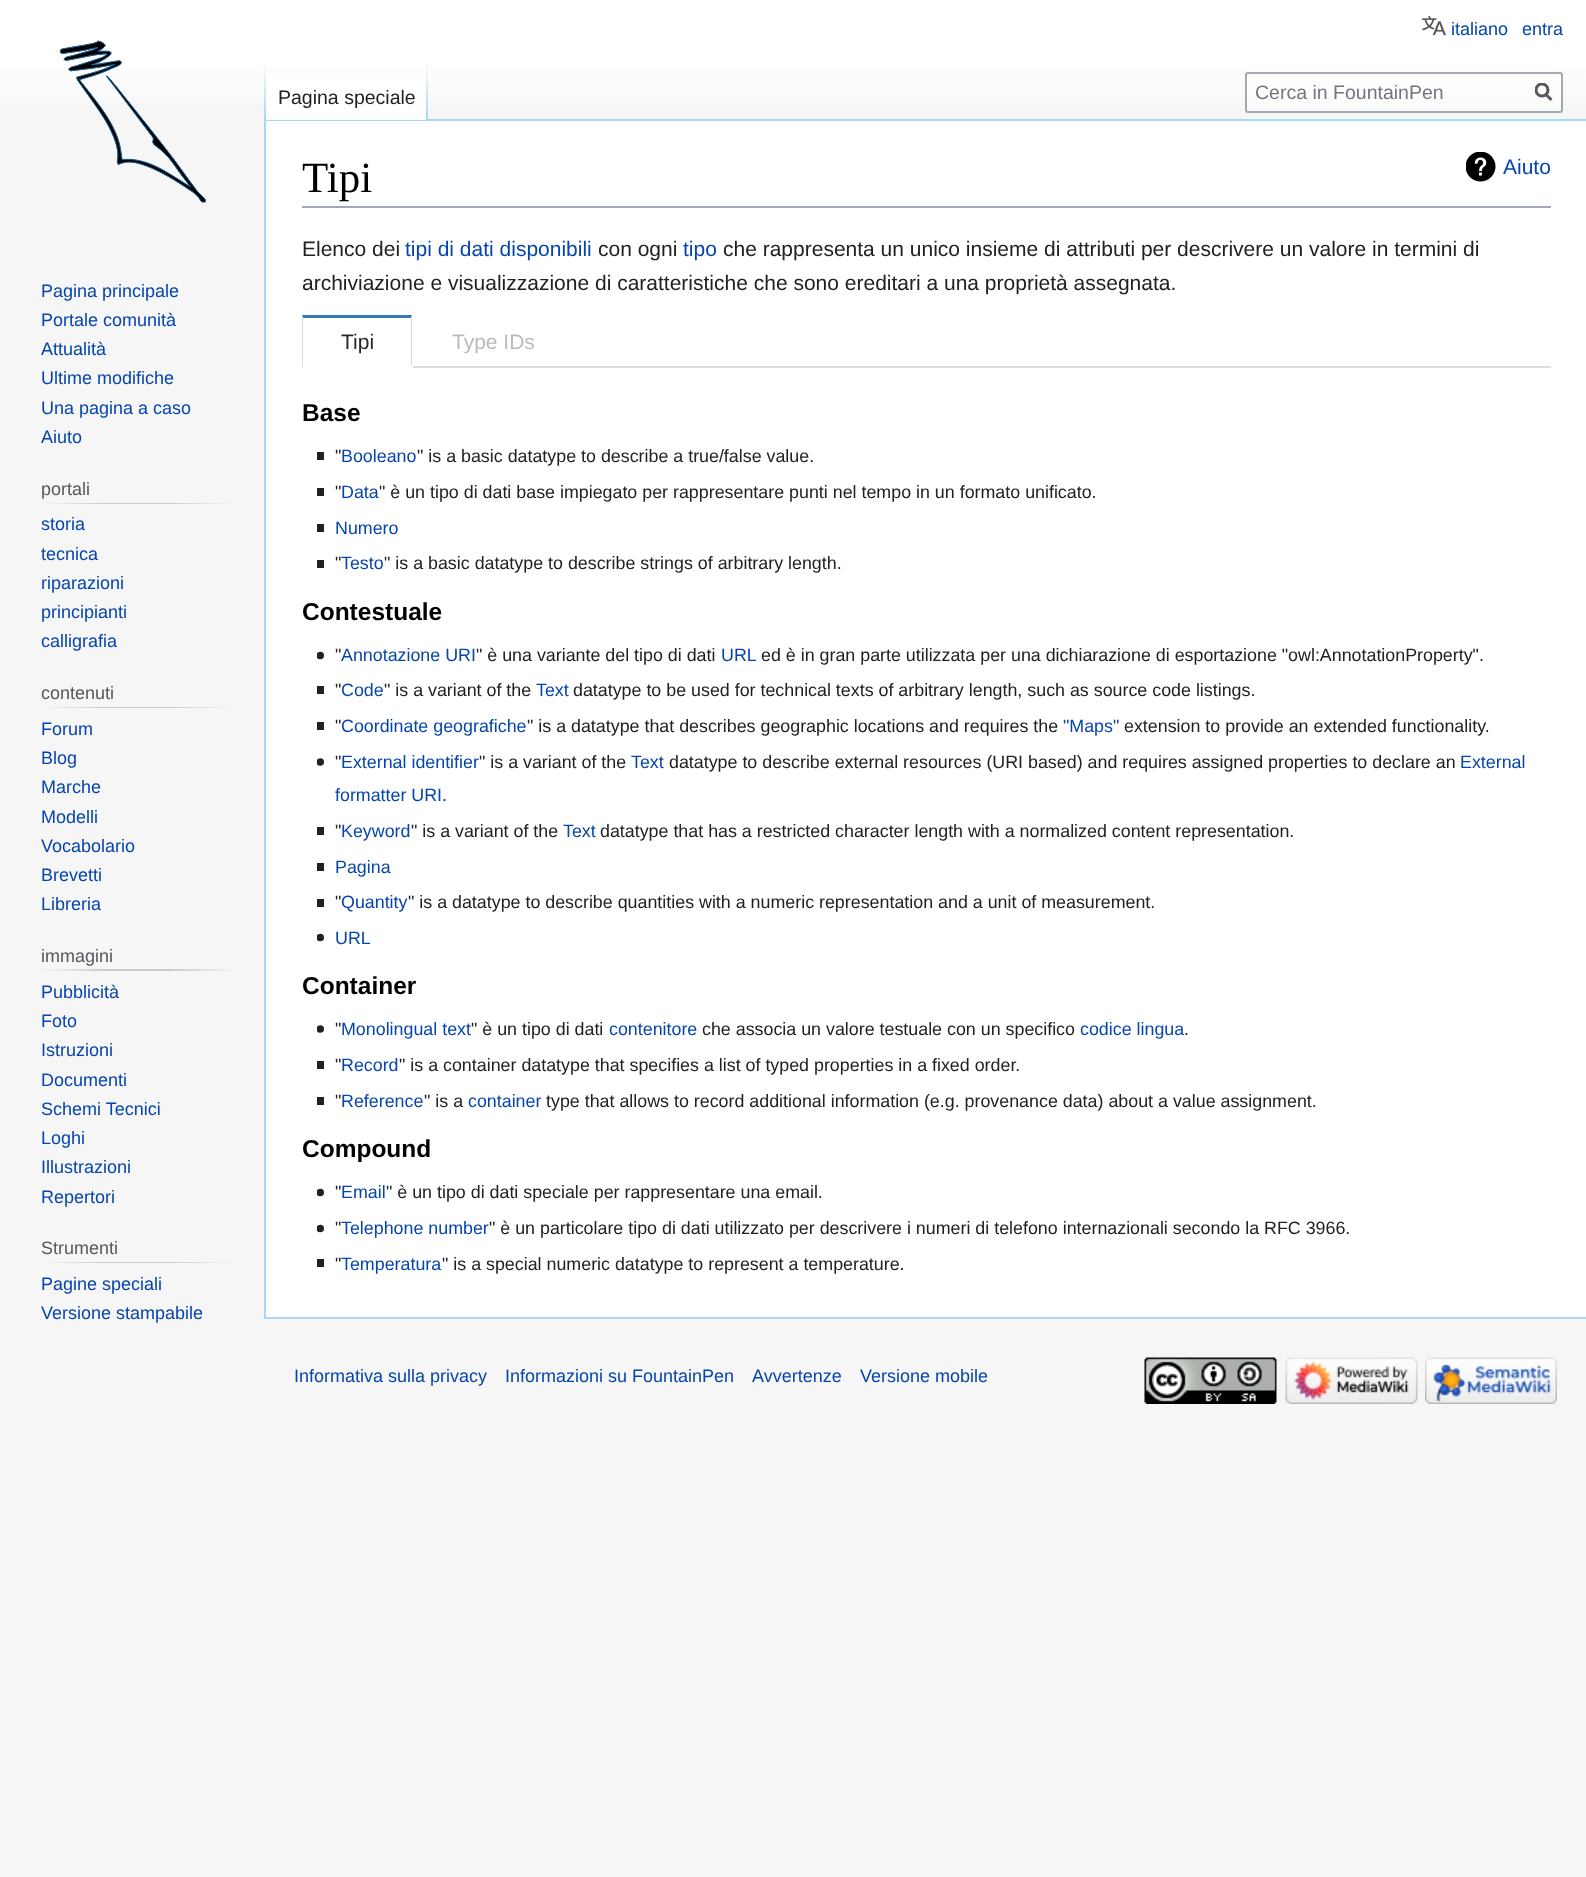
<svg xmlns="http://www.w3.org/2000/svg" width="1586" height="1877" viewBox="0 0 1586 1877">
  <defs>
    <linearGradient id="g1" gradientUnits="userSpaceOnUse" x1="794" y1="0" x2="794" y2="120"><stop offset="0.5" stop-color="rgb(255,255,255)"/><stop offset="1" stop-color="rgb(246,246,246)"/></linearGradient>
    <linearGradient id="g2" gradientUnits="userSpaceOnUse" x1="265" y1="60" x2="265" y2="120"><stop offset="0" stop-color="rgb(167,215,249)" stop-opacity="0"/><stop offset="1" stop-color="rgb(167,215,249)"/></linearGradient>
    <linearGradient id="g3" gradientUnits="userSpaceOnUse" x1="427" y1="60" x2="427" y2="120"><stop offset="0" stop-color="rgb(255,255,255)"/><stop offset="1" stop-color="rgb(167,215,249)"/></linearGradient>
    <clipPath id="clip1"><rect x="1535" y="83" width="18" height="19"/></clipPath>
    <linearGradient id="g4" gradientUnits="userSpaceOnUse" x1="41" y1="503" x2="237" y2="503"><stop offset="0" stop-color="rgb(246,246,246)"/><stop offset="0.33" stop-color="rgb(200,204,209)"/><stop offset="0.66" stop-color="rgb(200,204,209)"/><stop offset="1" stop-color="rgb(246,246,246)"/></linearGradient>
    <linearGradient id="g5" gradientUnits="userSpaceOnUse" x1="41" y1="707" x2="237" y2="707"><stop offset="0" stop-color="rgb(246,246,246)"/><stop offset="0.33" stop-color="rgb(200,204,209)"/><stop offset="0.66" stop-color="rgb(200,204,209)"/><stop offset="1" stop-color="rgb(246,246,246)"/></linearGradient>
    <linearGradient id="g6" gradientUnits="userSpaceOnUse" x1="41" y1="970" x2="237" y2="970"><stop offset="0" stop-color="rgb(246,246,246)"/><stop offset="0.33" stop-color="rgb(200,204,209)"/><stop offset="0.66" stop-color="rgb(200,204,209)"/><stop offset="1" stop-color="rgb(246,246,246)"/></linearGradient>
    <linearGradient id="g7" gradientUnits="userSpaceOnUse" x1="41" y1="1262" x2="237" y2="1262"><stop offset="0" stop-color="rgb(246,246,246)"/><stop offset="0.33" stop-color="rgb(200,204,209)"/><stop offset="0.66" stop-color="rgb(200,204,209)"/><stop offset="1" stop-color="rgb(246,246,246)"/></linearGradient>
  </defs>
  <rect width="100%" height="100%" fill="rgb(246,246,246)"/>
  <rect x="0" y="0" width="1586" height="103" fill="url(#g1)"/>
  <image x="1422" y="16" width="24" height="20" href="pic1.png"/>
  <g font-family="Liberation Sans" font-size="18" fill="rgb(6,69,173)">
    <text x="1451" y="35">italiano</text>
    <text x="1522" y="35">entra</text>
  </g>
  <rect x="264" y="119" width="1322" height="2" fill="rgb(167,215,249)"/>
  <rect x="264" y="1317" width="1322" height="2" fill="rgb(167,215,249)"/>
  <rect x="264" y="119" width="2" height="1200" fill="rgb(167,215,249)"/>
  <rect x="264" y="60" width="2" height="60" fill="url(#g2)"/>
  <rect x="266" y="77" width="160" height="43" fill="rgb(255,255,255)"/>
  <rect x="426" y="60" width="2" height="60" fill="url(#g3)"/>
  <text x="278" y="104" font-family="Liberation Sans" font-size="19.5" fill="rgb(32,33,34)">Pagina speciale</text>
  <rect x="1246" y="73" width="316" height="39" rx="2" fill="rgba(255,255,255,0.5)" stroke="rgb(162,169,177)" stroke-width="2"/>
  <text x="1255" y="99" font-family="Liberation Sans" font-size="19.5" fill="rgb(114,119,125)">Cerca in FountainPen</text>
  <path d="M1551.5 100L1545.5 94" fill="none" stroke="rgb(84,89,93)" stroke-width="3"/>
  <g clip-path="url(#clip1)">
    <circle cx="1542" cy="90" r="6" fill="none" stroke="rgb(84,89,93)" stroke-width="3"/>
  </g>
  <image x="59" y="40" width="147" height="163" href="pic2.png"/>
  <g font-family="Liberation Sans" font-size="18" fill="rgb(6,69,173)">
    <text>
      <tspan x="41" y="297">Pagina principale</tspan>
      <tspan x="41" y="326">Portale comunità</tspan>
      <tspan x="41" y="355">Attualità</tspan>
      <tspan x="41" y="384">Ultime modifiche</tspan>
      <tspan x="41" y="414">Una pagina a caso</tspan>
      <tspan x="41" y="443">Aiuto</tspan>
    </text>
  </g>
  <rect x="41" y="503" width="196" height="1" fill="url(#g4)"/>
  <text x="41" y="495" font-family="Liberation Sans" font-size="18" fill="rgb(84,89,93)">portali</text>
  <g font-family="Liberation Sans" font-size="18" fill="rgb(6,69,173)">
    <text>
      <tspan x="41" y="530">storia</tspan>
      <tspan x="41" y="560">tecnica</tspan>
      <tspan x="41" y="589">riparazioni</tspan>
      <tspan x="41" y="618">principianti</tspan>
      <tspan x="41" y="647">calligrafia</tspan>
    </text>
  </g>
  <rect x="41" y="707" width="196" height="1" fill="url(#g5)"/>
  <text x="41" y="699" font-family="Liberation Sans" font-size="18" fill="rgb(84,89,93)">contenuti</text>
  <g font-family="Liberation Sans" font-size="18" fill="rgb(6,69,173)">
    <text>
      <tspan x="41" y="735">Forum</tspan>
      <tspan x="41" y="764">Blog</tspan>
      <tspan x="41" y="793">Marche</tspan>
      <tspan x="41" y="823">Modelli</tspan>
      <tspan x="41" y="852">Vocabolario</tspan>
      <tspan x="41" y="881">Brevetti</tspan>
      <tspan x="41" y="910">Libreria</tspan>
    </text>
  </g>
  <rect x="41" y="969" width="196" height="2" fill="url(#g6)"/>
  <text x="41" y="962" font-family="Liberation Sans" font-size="18" fill="rgb(84,89,93)">immagini</text>
  <g font-family="Liberation Sans" font-size="18" fill="rgb(6,69,173)">
    <text>
      <tspan x="41" y="998">Pubblicità</tspan>
      <tspan x="41" y="1027">Foto</tspan>
      <tspan x="41" y="1056">Istruzioni</tspan>
      <tspan x="41" y="1086">Documenti</tspan>
      <tspan x="41" y="1115">Schemi Tecnici</tspan>
      <tspan x="41" y="1144">Loghi</tspan>
      <tspan x="41" y="1173">Illustrazioni</tspan>
      <tspan x="41" y="1203">Repertori</tspan>
    </text>
  </g>
  <rect x="41" y="1262" width="196" height="1" fill="url(#g7)"/>
  <text x="41" y="1254" font-family="Liberation Sans" font-size="18" fill="rgb(84,89,93)">Strumenti</text>
  <g font-family="Liberation Sans" font-size="18" fill="rgb(6,69,173)">
    <text>
      <tspan x="41" y="1290">Pagine speciali</tspan>
      <tspan x="41" y="1319">Versione stampabile</tspan>
    </text>
  </g>
  <rect x="266" y="121" width="1320" height="1196" fill="rgb(255,255,255)"/>
  <rect x="302" y="206" width="1249" height="2" fill="rgb(162,169,177)"/>
  <text x="302" y="192" font-family="Liberation Serif" font-size="43" fill="rgb(0,0,0)">Tipi</text>
  <image x="1466" y="152" width="30" height="30" href="pic3.png"/>
  <text x="1503" y="174" font-family="Liberation Sans" font-size="21" fill="rgb(6,69,173)">Aiuto</text>
  <text x="302" y="256" font-family="Liberation Sans" font-size="21" fill="rgb(32,33,34)">Elenco dei</text>
  <text x="405" y="256" font-family="Liberation Sans" font-size="21" fill="rgb(6,69,173)">tipi di dati disponibili</text>
  <text x="598" y="256" font-family="Liberation Sans" font-size="21" fill="rgb(32,33,34)">con ogni</text>
  <text x="683" y="256" font-family="Liberation Sans" font-size="21" fill="rgb(6,69,173)">tipo</text>
  <g font-family="Liberation Sans" font-size="21" fill="rgb(32,33,34)">
    <text x="723" y="256">che rappresenta un unico insieme di attributi per descrivere un valore in termini di</text>
    <text x="302" y="290">archiviazione e visualizzazione di caratteristiche che sono ereditari a una proprietà assegnata.</text>
  </g>
  <path d="M302 315H412L411 318H303Z" fill="rgb(51,122,183)"/>
  <path d="M412 315V368L411 366V318Z" fill="rgb(221,221,221)"/>
  <rect x="411" y="366" width="2" height="2" fill="rgb(255,255,255)"/>
  <path d="M302 368V315L303 318V366Z" fill="rgb(221,221,221)"/>
  <text x="341" y="349" font-family="Liberation Sans" font-size="21" fill="rgb(36,41,46)">Tipi</text>
  <text x="452" y="349" font-family="Liberation Sans" font-size="21" fill="rgb(187,187,187)">Type IDs</text>
  <rect x="413" y="366" width="1138" height="2" fill="rgb(221,221,221)"/>
  <text x="302" y="421" font-family="Liberation Sans" font-size="24.5" font-weight="bold" fill="rgb(0,0,0)">Base</text>
  <rect x="317" y="452" width="7" height="8" fill="rgb(32,33,34)"/>
  <text x="335" y="462" font-family="Liberation Sans" font-size="17.85" fill="rgb(32,33,34)">"</text>
  <text x="341" y="462" font-family="Liberation Sans" font-size="17.85" fill="rgb(6,69,173)">Booleano</text>
  <text x="417" y="462" font-family="Liberation Sans" font-size="17.85" fill="rgb(32,33,34)">" is a basic datatype to describe a true/false value.</text>
  <rect x="317" y="488" width="7" height="8" fill="rgb(32,33,34)"/>
  <text x="335" y="498" font-family="Liberation Sans" font-size="17.85" fill="rgb(32,33,34)">"</text>
  <text x="341" y="498" font-family="Liberation Sans" font-size="17.85" fill="rgb(6,69,173)">Data</text>
  <text x="379" y="498" font-family="Liberation Sans" font-size="17.85" fill="rgb(32,33,34)">" è un tipo di dati base impiegato per rappresentare punti nel tempo in un formato unificato.</text>
  <rect x="317" y="524" width="7" height="8" fill="rgb(32,33,34)"/>
  <text x="335" y="534" font-family="Liberation Sans" font-size="17.85" fill="rgb(6,69,173)">Numero</text>
  <rect x="317" y="560" width="7" height="8" fill="rgb(32,33,34)"/>
  <text x="335" y="569" font-family="Liberation Sans" font-size="17.85" fill="rgb(32,33,34)">"</text>
  <text x="341" y="569" font-family="Liberation Sans" font-size="17.85" fill="rgb(6,69,173)">Testo</text>
  <text x="384" y="569" font-family="Liberation Sans" font-size="17.85" fill="rgb(32,33,34)">" is a basic datatype to describe strings of arbitrary length.</text>
  <text x="302" y="620" font-family="Liberation Sans" font-size="24.5" font-weight="bold" fill="rgb(0,0,0)">Contestuale</text>
  <image x="317" y="651" width="7" height="9" href="pic4.png"/>
  <text x="335" y="661" font-family="Liberation Sans" font-size="17.85" fill="rgb(32,33,34)">"</text>
  <text x="341" y="661" font-family="Liberation Sans" font-size="17.85" fill="rgb(6,69,173)">Annotazione URI</text>
  <text x="476" y="661" font-family="Liberation Sans" font-size="17.85" fill="rgb(32,33,34)">" è una variante del tipo di dati</text>
  <text x="721" y="661" font-family="Liberation Sans" font-size="17.85" fill="rgb(6,69,173)">URL</text>
  <text x="761" y="661" font-family="Liberation Sans" font-size="17.85" fill="rgb(32,33,34)">ed è in gran parte utilizzata per una dichiarazione di esportazione "owl:AnnotationProperty".</text>
  <rect x="317" y="686" width="7" height="8" fill="rgb(32,33,34)"/>
  <text x="335" y="696" font-family="Liberation Sans" font-size="17.85" fill="rgb(32,33,34)">"</text>
  <text x="341" y="696" font-family="Liberation Sans" font-size="17.85" fill="rgb(6,69,173)">Code</text>
  <text x="384" y="696" font-family="Liberation Sans" font-size="17.85" fill="rgb(32,33,34)">" is a variant of the</text>
  <text x="536" y="696" font-family="Liberation Sans" font-size="17.85" fill="rgb(6,69,173)">Text</text>
  <text x="573" y="696" font-family="Liberation Sans" font-size="17.85" fill="rgb(32,33,34)">datatype to be used for technical texts of arbitrary length, such as source code listings.</text>
  <rect x="317" y="722" width="7" height="8" fill="rgb(32,33,34)"/>
  <text x="335" y="732" font-family="Liberation Sans" font-size="17.85" fill="rgb(32,33,34)">"</text>
  <text x="341" y="732" font-family="Liberation Sans" font-size="17.85" fill="rgb(6,69,173)">Coordinate geografiche</text>
  <text x="527" y="732" font-family="Liberation Sans" font-size="17.85" fill="rgb(32,33,34)">" is a datatype that describes geographic locations and requires the</text>
  <text x="1063" y="732" font-family="Liberation Sans" font-size="17.85" fill="rgb(6,69,173)">"Maps"</text>
  <text x="1124" y="732" font-family="Liberation Sans" font-size="17.85" fill="rgb(32,33,34)">extension to provide an extended functionality.</text>
  <image x="317" y="758" width="7" height="8" href="pic5.png"/>
  <text x="335" y="768" font-family="Liberation Sans" font-size="17.85" fill="rgb(32,33,34)">"</text>
  <text x="341" y="768" font-family="Liberation Sans" font-size="17.85" fill="rgb(6,69,173)">External identifier</text>
  <text x="479" y="768" font-family="Liberation Sans" font-size="17.85" fill="rgb(32,33,34)">" is a variant of the</text>
  <text x="631" y="768" font-family="Liberation Sans" font-size="17.85" fill="rgb(6,69,173)">Text</text>
  <text x="669" y="768" font-family="Liberation Sans" font-size="17.85" fill="rgb(32,33,34)">datatype to describe external resources (URI based) and requires assigned properties to declare an</text>
  <g font-family="Liberation Sans" font-size="17.85" fill="rgb(6,69,173)">
    <text x="1460" y="768">External</text>
    <text x="335" y="801">formatter URI</text>
  </g>
  <text x="442" y="801" font-family="Liberation Sans" font-size="17.85" fill="rgb(32,33,34)">.</text>
  <rect x="317" y="827" width="7" height="8" fill="rgb(32,33,34)"/>
  <text x="335" y="837" font-family="Liberation Sans" font-size="17.85" fill="rgb(32,33,34)">"</text>
  <text x="341" y="837" font-family="Liberation Sans" font-size="17.85" fill="rgb(6,69,173)">Keyword</text>
  <text x="411" y="837" font-family="Liberation Sans" font-size="17.85" fill="rgb(32,33,34)">" is a variant of the</text>
  <text x="563" y="837" font-family="Liberation Sans" font-size="17.85" fill="rgb(6,69,173)">Text</text>
  <text x="600" y="837" font-family="Liberation Sans" font-size="17.85" fill="rgb(32,33,34)">datatype that has a restricted character length with a normalized content representation.</text>
  <rect x="317" y="863" width="7" height="8" fill="rgb(32,33,34)"/>
  <text x="335" y="873" font-family="Liberation Sans" font-size="17.85" fill="rgb(6,69,173)">Pagina</text>
  <rect x="317" y="899" width="7" height="8" fill="rgb(32,33,34)"/>
  <text x="335" y="908" font-family="Liberation Sans" font-size="17.85" fill="rgb(32,33,34)">"</text>
  <text x="341" y="908" font-family="Liberation Sans" font-size="17.85" fill="rgb(6,69,173)">Quantity</text>
  <text x="408" y="908" font-family="Liberation Sans" font-size="17.85" fill="rgb(32,33,34)">" is a datatype to describe quantities with a numeric representation and a unit of measurement.</text>
  <image x="317" y="933" width="7" height="9" href="pic4.png"/>
  <text x="335" y="944" font-family="Liberation Sans" font-size="17.85" fill="rgb(6,69,173)">URL</text>
  <text x="302" y="994" font-family="Liberation Sans" font-size="24.5" font-weight="bold" fill="rgb(0,0,0)">Container</text>
  <image x="317" y="1025" width="7" height="8" href="pic6.png"/>
  <text x="335" y="1035" font-family="Liberation Sans" font-size="17.85" fill="rgb(32,33,34)">"</text>
  <text x="341" y="1035" font-family="Liberation Sans" font-size="17.85" fill="rgb(6,69,173)">Monolingual text</text>
  <text x="471" y="1035" font-family="Liberation Sans" font-size="17.85" fill="rgb(32,33,34)">" è un tipo di dati</text>
  <text x="609" y="1035" font-family="Liberation Sans" font-size="17.85" fill="rgb(6,69,173)">contenitore</text>
  <text x="702" y="1035" font-family="Liberation Sans" font-size="17.85" fill="rgb(32,33,34)">che associa un valore testuale con un specifico</text>
  <text x="1080" y="1035" font-family="Liberation Sans" font-size="17.85" fill="rgb(6,69,173)">codice lingua</text>
  <text x="1184" y="1035" font-family="Liberation Sans" font-size="17.85" fill="rgb(32,33,34)">.</text>
  <rect x="317" y="1061" width="7" height="8" fill="rgb(32,33,34)"/>
  <text x="335" y="1071" font-family="Liberation Sans" font-size="17.85" fill="rgb(32,33,34)">"</text>
  <text x="341" y="1071" font-family="Liberation Sans" font-size="17.85" fill="rgb(6,69,173)">Record</text>
  <text x="399" y="1071" font-family="Liberation Sans" font-size="17.85" fill="rgb(32,33,34)">" is a container datatype that specifies a list of typed properties in a fixed order.</text>
  <rect x="317" y="1097" width="7" height="8" fill="rgb(32,33,34)"/>
  <text x="335" y="1107" font-family="Liberation Sans" font-size="17.85" fill="rgb(32,33,34)">"</text>
  <text x="341" y="1107" font-family="Liberation Sans" font-size="17.85" fill="rgb(6,69,173)">Reference</text>
  <text x="424" y="1107" font-family="Liberation Sans" font-size="17.85" fill="rgb(32,33,34)">" is a</text>
  <text x="468" y="1107" font-family="Liberation Sans" font-size="17.85" fill="rgb(6,69,173)">container</text>
  <text x="546" y="1107" font-family="Liberation Sans" font-size="17.85" fill="rgb(32,33,34)">type that allows to record additional information (e.g. provenance data) about a value assignment.</text>
  <text x="302" y="1157" font-family="Liberation Sans" font-size="24.5" font-weight="bold" fill="rgb(0,0,0)">Compound</text>
  <image x="317" y="1188" width="7" height="9" href="pic4.png"/>
  <text x="335" y="1198" font-family="Liberation Sans" font-size="17.85" fill="rgb(32,33,34)">"</text>
  <text x="341" y="1198" font-family="Liberation Sans" font-size="17.85" fill="rgb(6,69,173)">Email</text>
  <text x="386" y="1198" font-family="Liberation Sans" font-size="17.85" fill="rgb(32,33,34)">" è un tipo di dati speciale per rappresentare una email.</text>
  <image x="317" y="1224" width="7" height="9" href="pic4.png"/>
  <text x="335" y="1234" font-family="Liberation Sans" font-size="17.85" fill="rgb(32,33,34)">"</text>
  <text x="341" y="1234" font-family="Liberation Sans" font-size="17.85" fill="rgb(6,69,173)">Telephone number</text>
  <text x="489" y="1234" font-family="Liberation Sans" font-size="17.85" fill="rgb(32,33,34)">" è un particolare tipo di dati utilizzato per descrivere i numeri di telefono internazionali secondo la RFC 3966.</text>
  <rect x="317" y="1259" width="7" height="8" fill="rgb(32,33,34)"/>
  <text x="335" y="1270" font-family="Liberation Sans" font-size="17.85" fill="rgb(32,33,34)">"</text>
  <text x="341" y="1270" font-family="Liberation Sans" font-size="17.85" fill="rgb(6,69,173)">Temperatura</text>
  <text x="442" y="1270" font-family="Liberation Sans" font-size="17.85" fill="rgb(32,33,34)">" is a special numeric datatype to represent a temperature.</text>
  <g font-family="Liberation Sans" font-size="18" fill="rgb(6,69,173)">
    <text x="294" y="1382">Informativa sulla privacy</text>
    <text x="505" y="1382">Informazioni su FountainPen</text>
    <text x="752" y="1382">Avvertenze</text>
    <text x="860" y="1382">Versione mobile</text>
  </g>
  <image x="1144" y="1357" width="133" height="47" href="pic7.png"/>
  <image x="1285" y="1357" width="133" height="47" href="pic8.png"/>
  <image x="1425" y="1357" width="132" height="47" href="pic9.png"/>
</svg>
